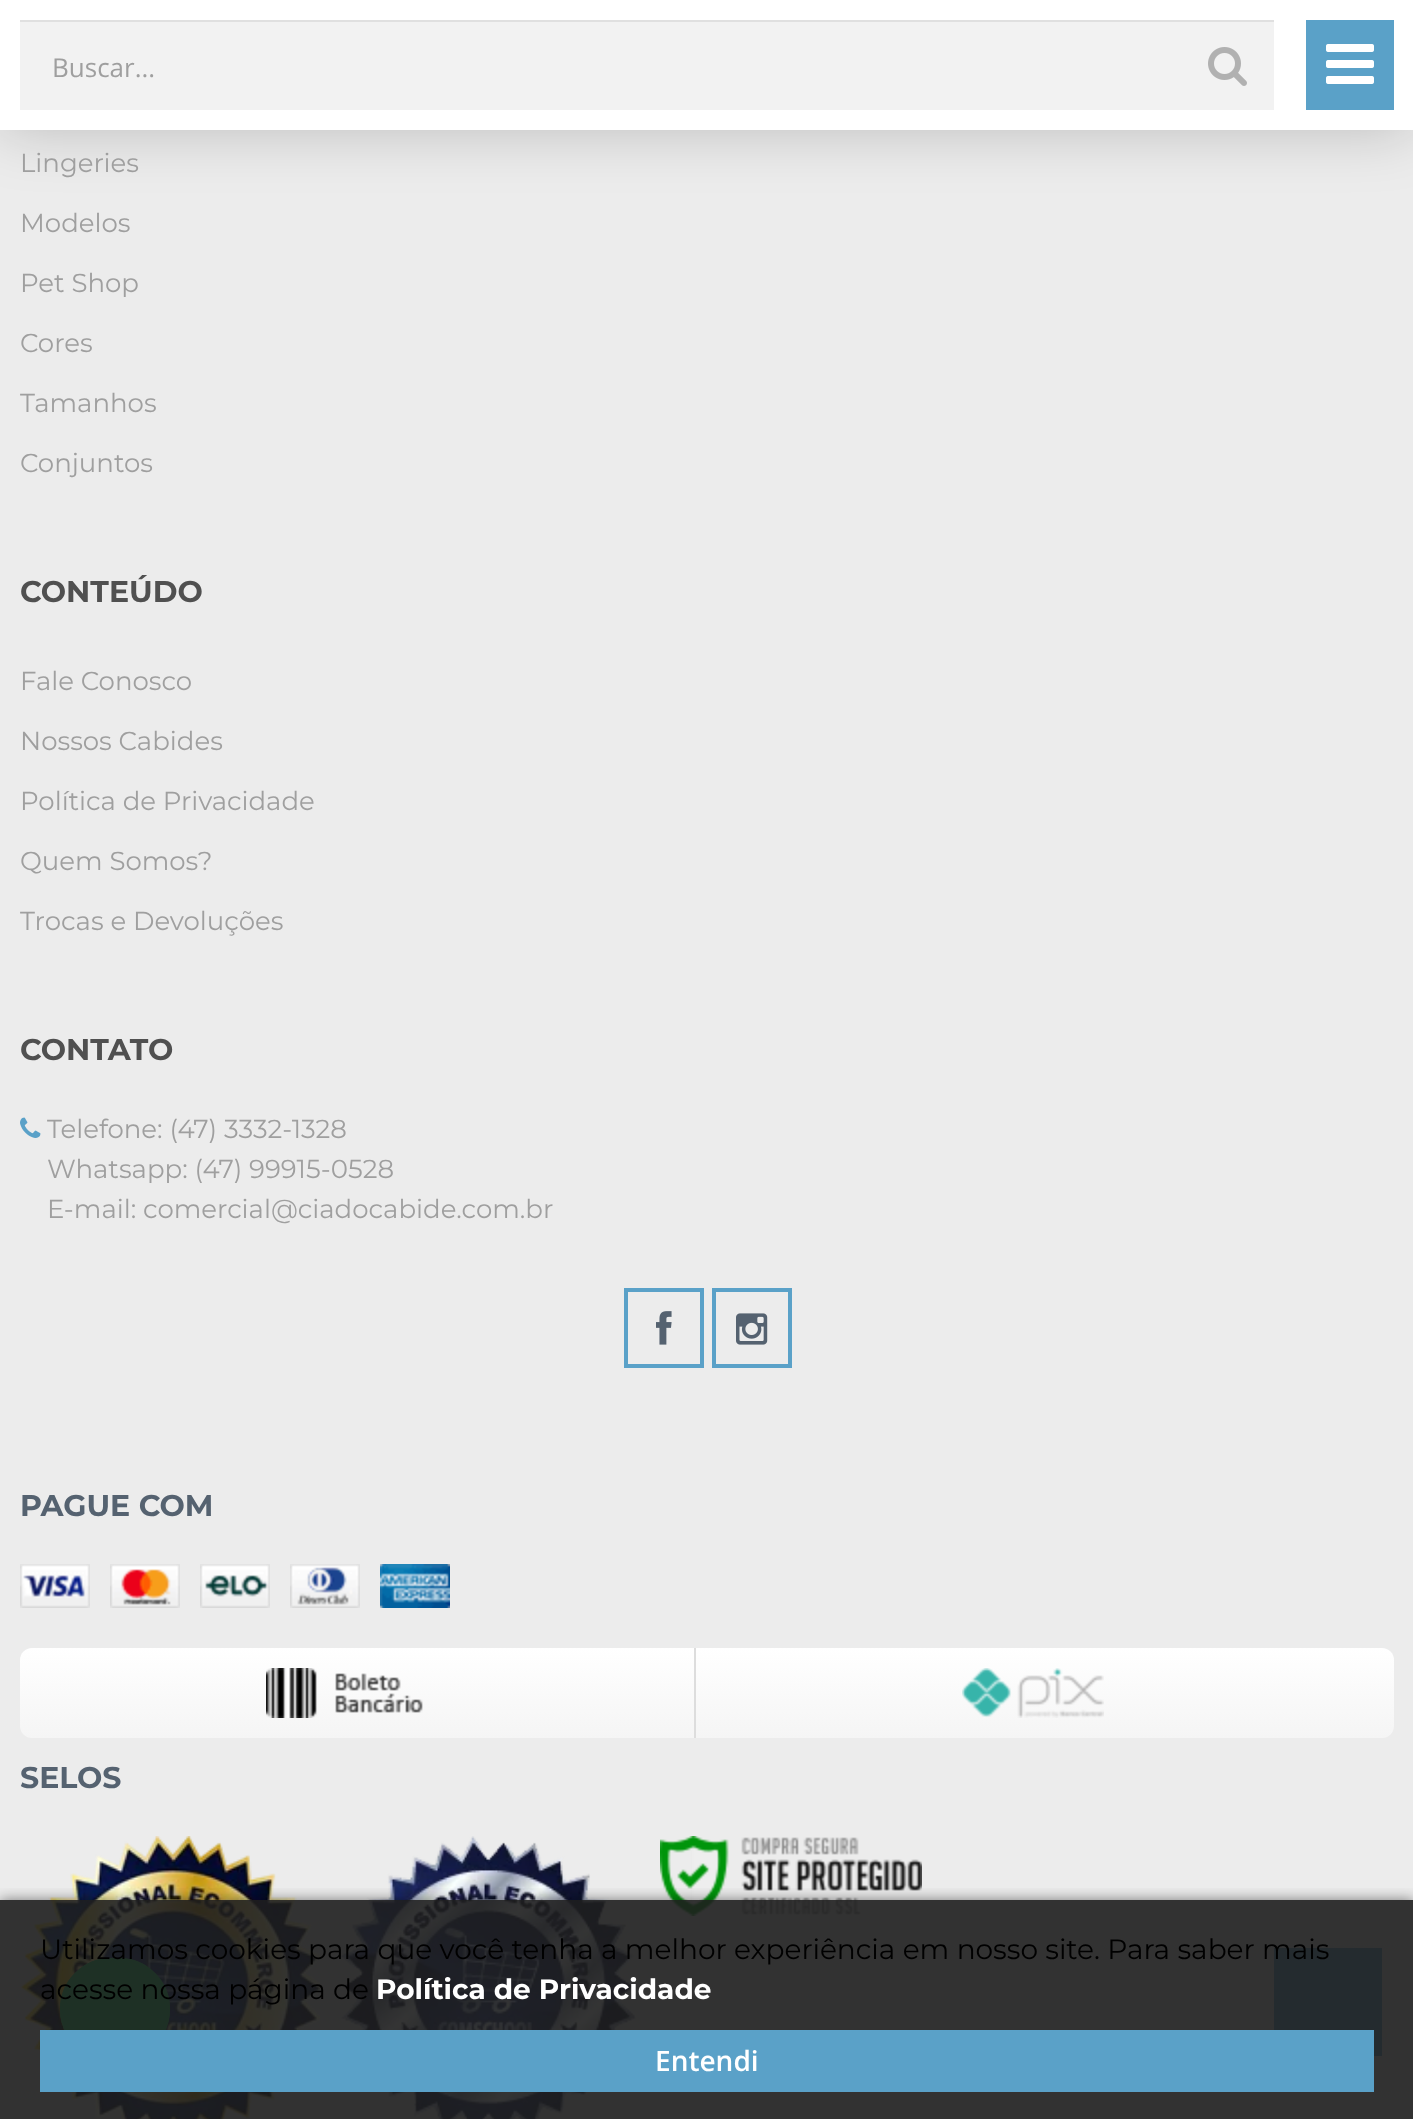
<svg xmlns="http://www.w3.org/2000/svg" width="1413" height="2119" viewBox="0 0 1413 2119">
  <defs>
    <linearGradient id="g1" gradientUnits="userSpaceOnUse" x1="707" y1="1648" x2="707" y2="1738"><stop offset="0" stop-color="rgb(255,255,255)"/><stop offset="1" stop-color="rgb(245,245,245)"/></linearGradient>
    <clipPath id="clip1"><rect x="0" y="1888" width="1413" height="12"/></clipPath>
  </defs>
  <rect width="100%" height="100%" fill="rgb(236,236,236)"/>
  <rect x="0" y="0" width="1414" height="130" fill="rgba(0,0,0,0.2)" filter="blur(30px)"/>
  <rect x="0" y="0" width="1413" height="130" fill="rgb(255,255,255)"/>
  <rect x="20" y="22" width="1254" height="88" fill="rgb(242,242,242)"/>
  <rect x="20" y="20" width="1254" height="2" fill="rgb(224,224,224)"/>
  <text x="52" y="77" font-family="Open Sans" font-size="26" fill="rgb(159,159,159)">Buscar...</text>
  <image x="1208" y="47" width="39" height="39" href="pic1.png"/>
  <rect x="1306" y="20" width="88" height="90" fill="rgb(90,161,200)"/>
  <image x="1326" y="44" width="48" height="40" href="pic2.png"/>
  <g font-family="Montserrat" font-size="26" fill="rgb(159,159,159)">
    <text x="20" y="172">Lingeries</text>
    <text x="20" y="232">Modelos</text>
    <text x="20" y="292">Pet Shop</text>
    <text x="20" y="352">Cores</text>
    <text x="20" y="412">Tamanhos</text>
    <text x="20" y="472">Conjuntos</text>
  </g>
  <text x="20" y="602" font-family="Montserrat" font-size="30" font-weight="bold" fill="rgb(80,80,80)">CONTEÚDO</text>
  <g font-family="Montserrat" font-size="26" fill="rgb(159,159,159)">
    <text x="20" y="690">Fale Conosco</text>
    <text x="20" y="750">Nossos Cabides</text>
    <text x="20" y="810">Política de Privacidade</text>
    <text x="20" y="870">Quem Somos?</text>
    <text x="20" y="930">Trocas e Devoluções</text>
  </g>
  <text x="20" y="1060" font-family="Montserrat" font-size="30" font-weight="bold" fill="rgb(80,80,80)">CONTATO</text>
  <image x="20" y="1117" width="21" height="21" href="pic3.png"/>
  <g font-family="Montserrat" font-size="26" fill="rgb(159,159,159)">
    <text>
      <tspan x="47" y="1138">Telefone: (47) 3332-1328</tspan>
      <tspan x="47" y="1178">Whatsapp: (47) 99915-0528</tspan>
      <tspan x="47" y="1218">E-mail: comercial@ciadocabide.com.br</tspan>
    </text>
  </g>
  <rect x="626" y="1290" width="76" height="76" fill="none" stroke="rgb(90,161,200)" stroke-width="4"/>
  <image x="656" y="1311" width="16" height="34" href="pic4.png"/>
  <rect x="714" y="1290" width="76" height="76" fill="none" stroke="rgb(90,161,200)" stroke-width="4"/>
  <image x="736" y="1313" width="32" height="32" href="pic5.png"/>
  <text x="20" y="1516" font-family="Montserrat" font-size="30" font-weight="bold" fill="rgb(85,98,112)">PAGUE COM</text>
  <image x="20" y="1564" width="70" height="44" href="pic6.png"/>
  <image x="110" y="1564" width="70" height="44" href="pic7.png"/>
  <image x="200" y="1564" width="70" height="44" href="pic8.png"/>
  <image x="290" y="1564" width="70" height="44" href="pic9.png"/>
  <image x="380" y="1564" width="70" height="44" href="pic10.png"/>
  <rect x="20" y="1648" width="1374" height="90" rx="12" fill="url(#g1)"/>
  <image x="266" y="1668" width="157" height="50" href="pic11.png"/>
  <rect x="694" y="1648" width="2" height="90" fill="rgb(221,221,221)"/>
  <image x="962" y="1668" width="142" height="50" href="pic12.png"/>
  <text x="20" y="1788" font-family="Montserrat" font-size="30" font-weight="bold" fill="rgb(85,98,112)">SELOS</text>
  <image x="20" y="1836" width="300" height="283" href="pic13.png"/>
  <image x="341" y="1836" width="298" height="283" href="pic14.png"/>
  <image x="660" y="1836" width="262" height="80" href="pic15.png"/>
  <rect x="61" y="1959" width="108" height="100" rx="50" fill="none" stroke="rgb(37,211,102)" stroke-width="2"/>
  <rect x="61" y="1959" width="108" height="100" rx="50" fill="rgb(37,211,102)" stroke="rgb(37,211,102)" stroke-width="2"/>
  <rect x="1274" y="1948" width="108" height="108" fill="rgb(90,161,200)"/>
  <g clip-path="url(#clip1)">
    <rect x="0" y="1900" width="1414" height="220" fill="rgba(0,0,0,0.5)" filter="blur(7px)"/>
  </g>
  <rect x="0" y="1900" width="1413" height="219" fill="rgba(30,30,30,0.9)"/>
  <g font-family="Montserrat" font-size="28" fill="rgb(0,0,0)">
    <text>
      <tspan x="40" y="1959">Utilizamos cookies para que você tenha a melhor experiência em nosso site. Para saber mais</tspan>
      <tspan x="40" y="1999">acesse nossa página de</tspan>
    </text>
  </g>
  <text x="376" y="1999" font-family="Montserrat" font-size="28" font-weight="bold" fill="rgb(255,255,255)">Política de Privacidade</text>
  <rect x="40" y="2030" width="1334" height="62" fill="rgb(90,161,200)"/>
  <text x="655" y="2071" font-family="Open Sans" font-size="28" font-weight="600" fill="rgb(255,255,255)">Entendi</text>
</svg>
